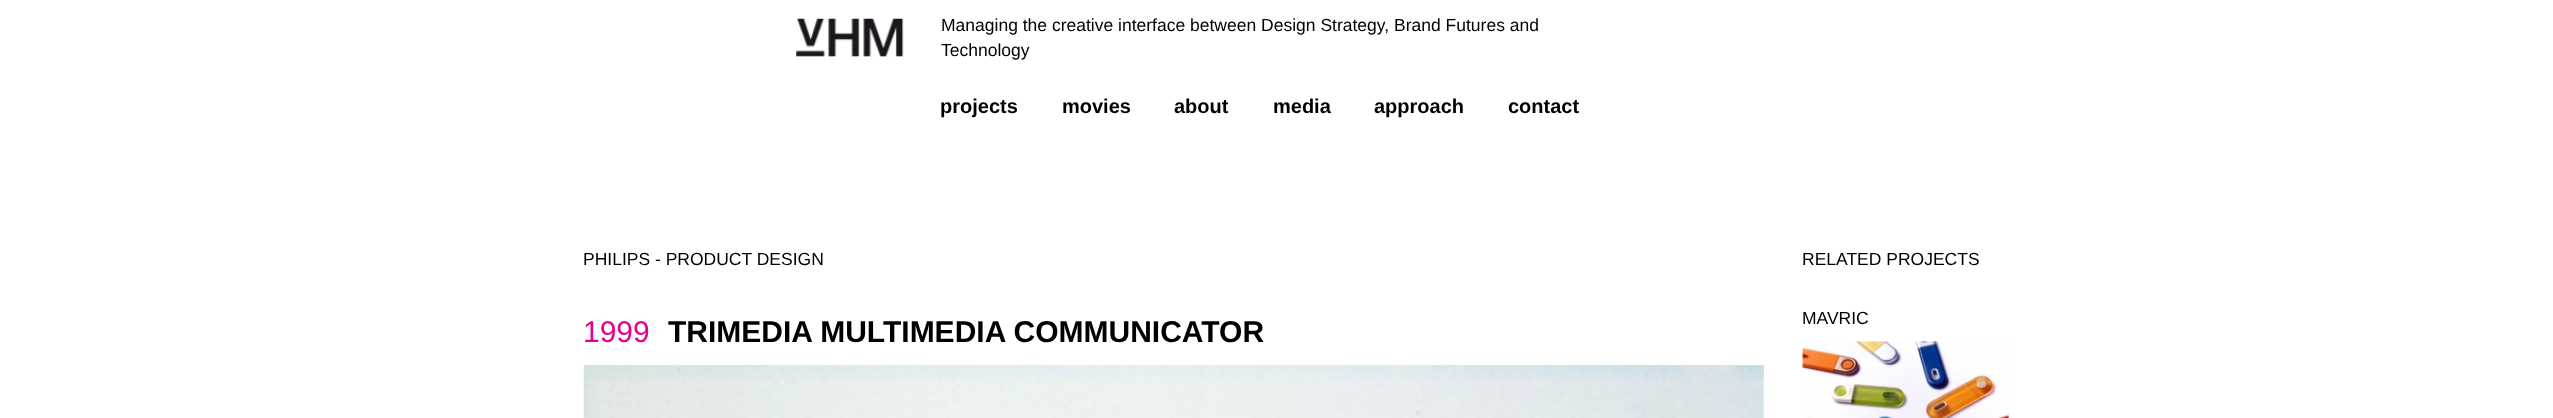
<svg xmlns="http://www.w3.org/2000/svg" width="2553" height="418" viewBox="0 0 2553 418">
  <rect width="100%" height="100%" fill="rgb(255,255,255)"/>
  <image x="796" y="18" width="108" height="39" href="pic1.png"/>
  <g font-family="Liberation Sans" font-size="17.5" fill="rgb(0,0,0)">
    <text>
      <tspan x="941" y="31">Managing the creative interface between Design Strategy, Brand Futures and</tspan>
      <tspan x="941" y="56">Technology</tspan>
    </text>
  </g>
  <g font-family="Liberation Sans" font-size="20" font-weight="bold" fill="rgb(0,0,0)">
    <text x="940" y="113">projects</text>
    <text x="1062" y="113">movies</text>
    <text x="1174" y="113">about</text>
    <text x="1273" y="113">media</text>
    <text x="1374" y="113">approach</text>
    <text x="1508" y="113">contact</text>
  </g>
  <text x="583" y="265" font-family="Liberation Sans" font-size="17.5" fill="rgb(0,0,0)">PHILIPS - PRODUCT DESIGN</text>
  <text x="583" y="342" font-family="Liberation Sans" font-size="30" fill="rgb(232,0,140)">1999</text>
  <text x="668" y="342" font-family="Liberation Sans" font-size="30" font-weight="bold" fill="rgb(0,0,0)">TRIMEDIA MULTIMEDIA COMMUNICATOR</text>
  <image x="583" y="365" width="1181" height="53" href="pic2.png"/>
  <g font-family="Liberation Sans" font-size="17.5" fill="rgb(0,0,0)">
    <text x="1802" y="265">RELATED PROJECTS</text>
    <text x="1802" y="324">MAVRIC</text>
  </g>
  <image x="1802" y="341" width="207" height="77" href="pic3.png"/>
</svg>
